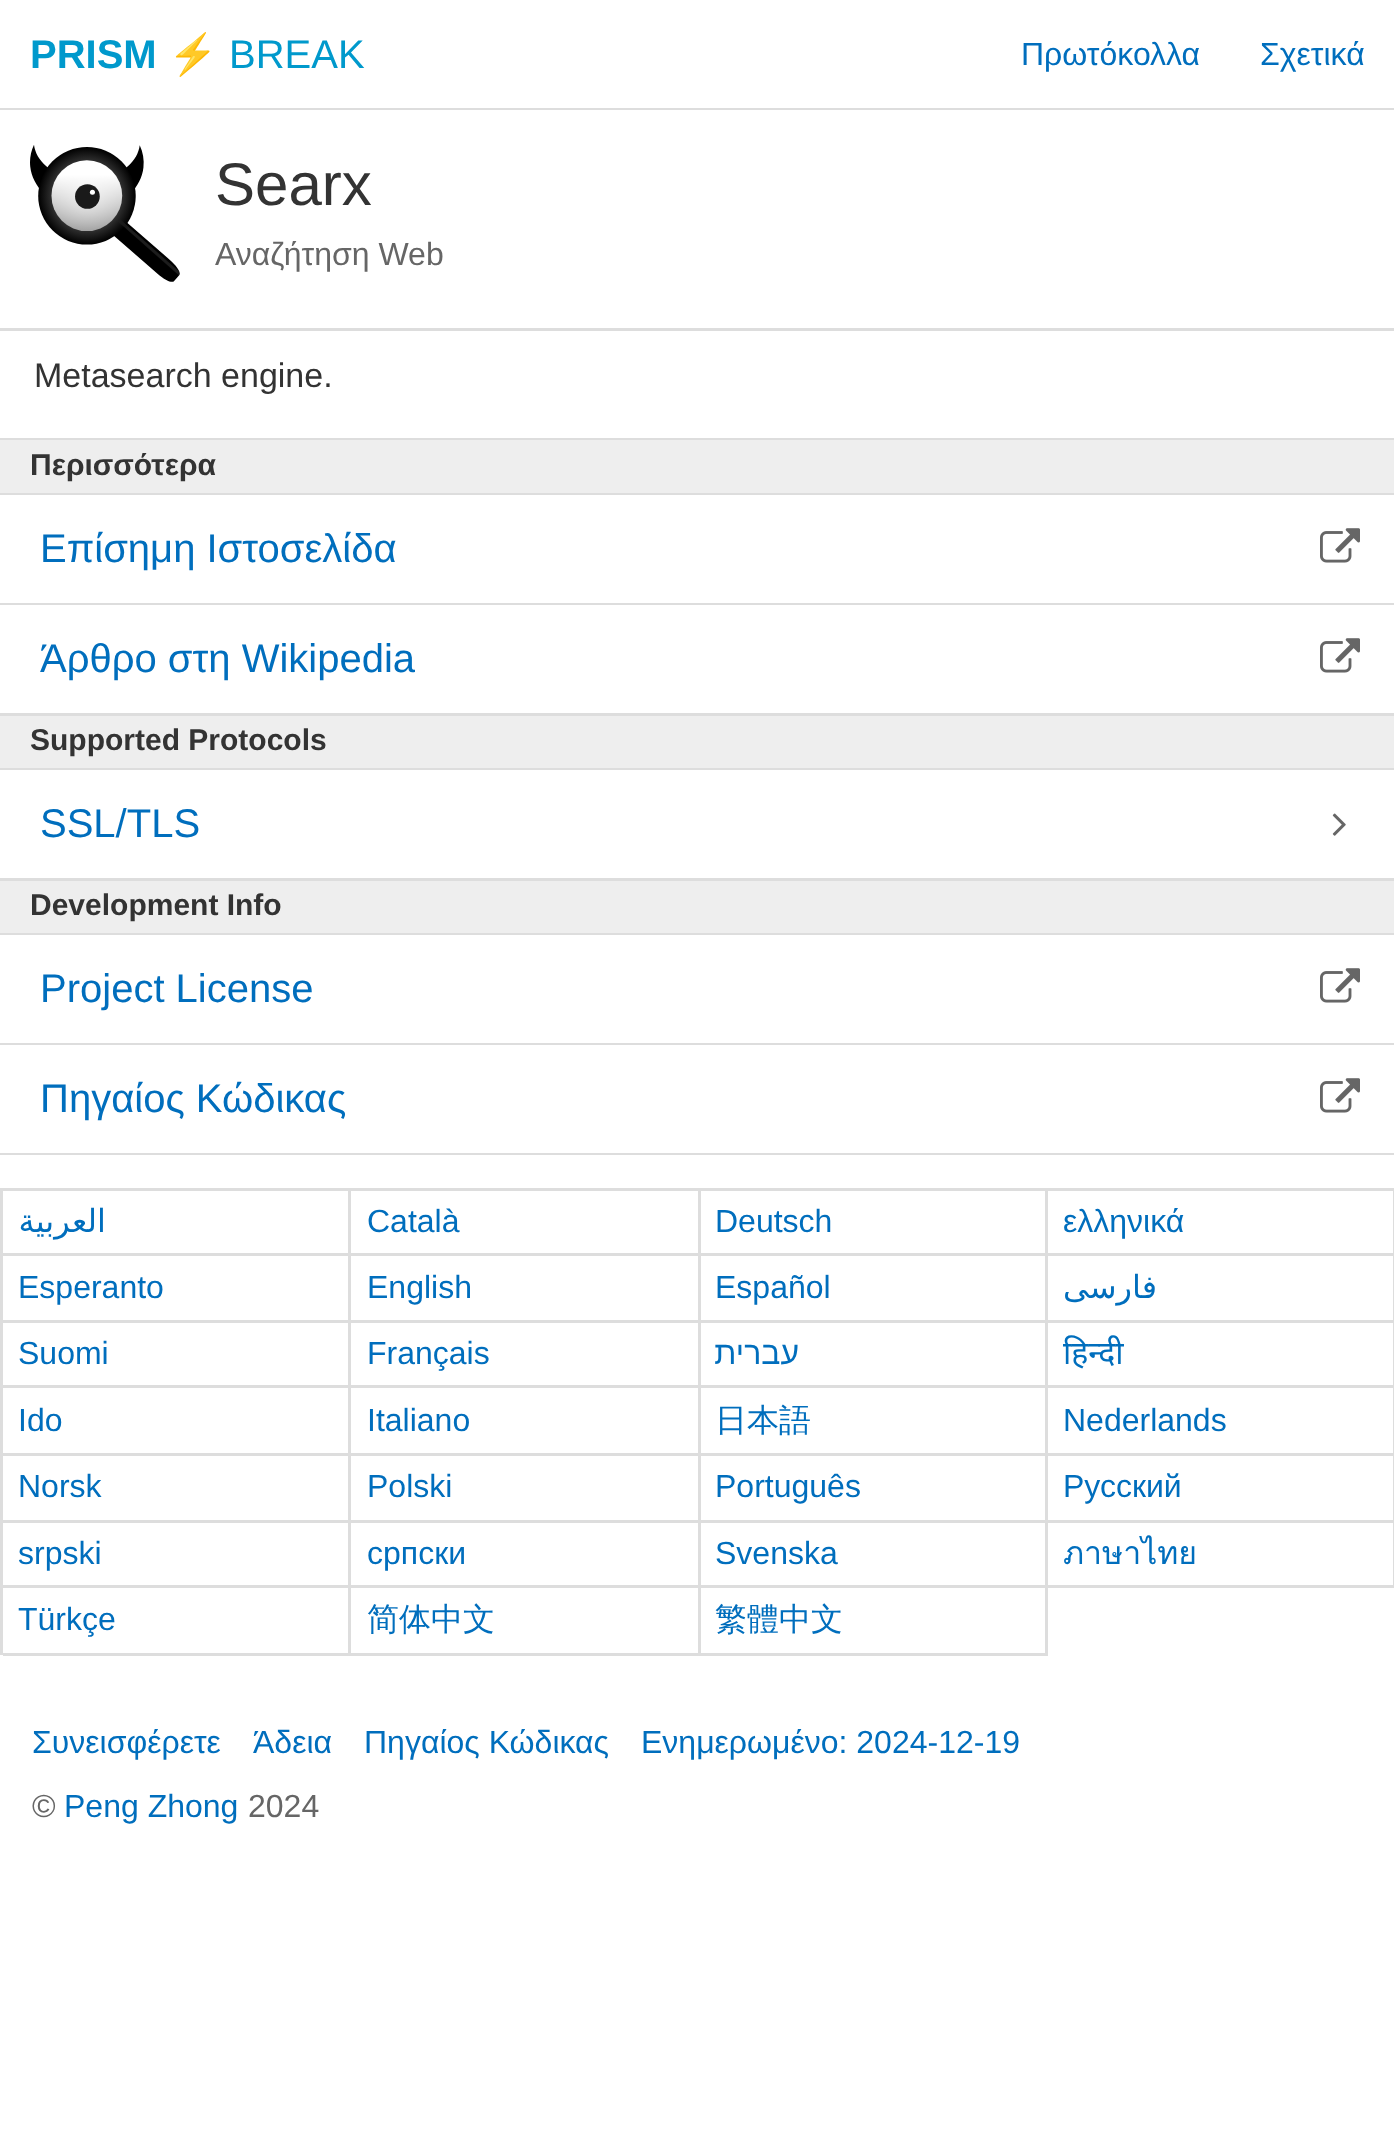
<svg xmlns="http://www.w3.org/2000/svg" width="1394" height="2145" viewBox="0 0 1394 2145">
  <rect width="100%" height="100%" fill="rgb(255,255,255)"/>
  <rect x="0" y="108" width="1394" height="2" fill="rgb(221,221,221)"/>
  <text x="30" y="68" font-family="Liberation Sans" font-size="40" font-weight="bold" fill="rgb(0,153,204)">PRISM</text>
  <text x="168" y="68" font-family="Noto Color Emoji" font-size="40" fill="rgb(0,153,204)">⚡</text>
  <text x="229" y="68" font-family="Liberation Sans" font-size="40" fill="rgb(0,153,204)">BREAK</text>
  <g font-family="Liberation Sans" font-size="32" fill="rgb(0,110,189)">
    <text x="1021" y="65">Πρωτόκολλα</text>
    <text x="1260" y="65">Σχετικά</text>
  </g>
  <rect x="0" y="328" width="1394" height="3" fill="rgb(221,221,221)"/>
  <image x="30" y="145" width="150" height="137" href="pic1.png"/>
  <text x="215" y="205" font-family="Liberation Sans" font-size="60" fill="rgb(51,51,51)">Searx</text>
  <text x="215" y="265" font-family="Liberation Sans" font-size="32" fill="rgb(102,102,102)">Αναζήτηση Web</text>
  <rect x="0" y="438" width="1394" height="2" fill="rgb(221,221,221)"/>
  <text x="34" y="387" font-family="Liberation Sans" font-size="34" fill="rgb(51,51,51)">Metasearch engine.</text>
  <rect x="0" y="440" width="1394" height="53" fill="rgb(238,238,238)"/>
  <rect x="0" y="493" width="1394" height="2" fill="rgb(221,221,221)"/>
  <text x="30" y="475" font-family="Liberation Sans" font-size="30" font-weight="bold" fill="rgb(51,51,51)">Περισσότερα</text>
  <rect x="0" y="603" width="1394" height="2" fill="rgb(221,221,221)"/>
  <text x="40" y="562" font-family="Liberation Sans" font-size="40" fill="rgb(0,110,189)">Επίσημη Ιστοσελίδα</text>
  <image x="1320" y="528" width="40" height="35" href="pic2.png"/>
  <rect x="0" y="713" width="1394" height="3" fill="rgb(221,221,221)"/>
  <text x="40" y="672" font-family="Liberation Sans" font-size="40" fill="rgb(0,110,189)">Άρθρο στη Wikipedia</text>
  <image x="1320" y="638" width="40" height="35" href="pic2.png"/>
  <rect x="0" y="716" width="1394" height="52" fill="rgb(238,238,238)"/>
  <rect x="0" y="768" width="1394" height="2" fill="rgb(221,221,221)"/>
  <text x="30" y="750" font-family="Liberation Sans" font-size="30" font-weight="bold" fill="rgb(51,51,51)">Supported Protocols</text>
  <rect x="0" y="878" width="1394" height="3" fill="rgb(221,221,221)"/>
  <text x="40" y="837" font-family="Liberation Sans" font-size="40" fill="rgb(0,110,189)">SSL/TLS</text>
  <image x="1332" y="813" width="14" height="23" href="pic3.png"/>
  <rect x="0" y="881" width="1394" height="52" fill="rgb(238,238,238)"/>
  <rect x="0" y="933" width="1394" height="2" fill="rgb(221,221,221)"/>
  <text x="30" y="915" font-family="Liberation Sans" font-size="30" font-weight="bold" fill="rgb(51,51,51)">Development Info</text>
  <rect x="0" y="1043" width="1394" height="2" fill="rgb(221,221,221)"/>
  <text x="40" y="1002" font-family="Liberation Sans" font-size="40" fill="rgb(0,110,189)">Project License</text>
  <image x="1320" y="968" width="40" height="35" href="pic2.png"/>
  <rect x="0" y="1153" width="1394" height="2" fill="rgb(221,221,221)"/>
  <text x="40" y="1112" font-family="Liberation Sans" font-size="40" fill="rgb(0,110,189)">Πηγαίος Κώδικας</text>
  <image x="1320" y="1078" width="40" height="35" href="pic2.png"/>
  <rect x="0" y="1188" width="1394" height="3" fill="rgb(221,221,221)"/>
  <rect x="0" y="1188" width="3" height="467" fill="rgb(221,221,221)"/>
  <rect x="348" y="1190" width="3" height="65" fill="rgb(221,221,221)"/>
  <rect x="3" y="1253" width="347" height="3" fill="rgb(221,221,221)"/>
  <text x="106" y="1232" font-family="DejaVu Sans" font-size="32" direction="rtl" fill="rgb(0,110,189)">العربية</text>
  <rect x="698" y="1190" width="3" height="65" fill="rgb(221,221,221)"/>
  <rect x="350" y="1253" width="350" height="3" fill="rgb(221,221,221)"/>
  <text x="367" y="1232" font-family="Liberation Sans" font-size="32" fill="rgb(0,110,189)">Català</text>
  <rect x="1045" y="1190" width="3" height="65" fill="rgb(221,221,221)"/>
  <rect x="700" y="1253" width="348" height="3" fill="rgb(221,221,221)"/>
  <text x="715" y="1232" font-family="Liberation Sans" font-size="32" fill="rgb(0,110,189)">Deutsch</text>
  <rect x="1393" y="1190" width="1" height="65" fill="rgb(221,221,221)"/>
  <rect x="1048" y="1253" width="346" height="3" fill="rgb(221,221,221)"/>
  <text x="1063" y="1232" font-family="Liberation Sans" font-size="32" fill="rgb(0,110,189)">ελληνικά</text>
  <rect x="348" y="1255" width="3" height="200" fill="rgb(221,221,221)"/>
  <rect x="3" y="1320" width="347" height="3" fill="rgb(221,221,221)"/>
  <text x="18" y="1298" font-family="Liberation Sans" font-size="32" fill="rgb(0,110,189)">Esperanto</text>
  <rect x="698" y="1255" width="3" height="200" fill="rgb(221,221,221)"/>
  <rect x="350" y="1320" width="350" height="3" fill="rgb(221,221,221)"/>
  <text x="367" y="1298" font-family="Liberation Sans" font-size="32" fill="rgb(0,110,189)">English</text>
  <rect x="1045" y="1255" width="3" height="200" fill="rgb(221,221,221)"/>
  <rect x="700" y="1320" width="348" height="3" fill="rgb(221,221,221)"/>
  <text x="715" y="1298" font-family="Liberation Sans" font-size="32" fill="rgb(0,110,189)">Español</text>
  <rect x="1393" y="1255" width="1" height="200" fill="rgb(221,221,221)"/>
  <rect x="1048" y="1320" width="346" height="3" fill="rgb(221,221,221)"/>
  <text x="1157" y="1298" font-family="DejaVu Sans" font-size="32" direction="rtl" fill="rgb(0,110,189)">فارسی</text>
  <rect x="3" y="1385" width="1391" height="3" fill="rgb(221,221,221)"/>
  <g font-family="Liberation Sans" font-size="32" fill="rgb(0,110,189)">
    <text x="18" y="1364">Suomi</text>
    <text x="367" y="1364">Français</text>
  </g>
  <text x="799" y="1364" font-family="Liberation Sans" font-size="32" direction="rtl" fill="rgb(0,110,189)">עברית</text>
  <text x="1063" y="1364" font-family="Noto Sans" font-size="32" fill="rgb(0,110,189)">हिन्दी</text>
  <rect x="3" y="1453" width="1391" height="3" fill="rgb(221,221,221)"/>
  <g font-family="Liberation Sans" font-size="32" fill="rgb(0,110,189)">
    <text x="18" y="1431">Ido</text>
    <text x="367" y="1431">Italiano</text>
  </g>
  <text x="715" y="1431" font-family="WenQuanYi Zen Hei" font-size="32" font-weight="500" fill="rgb(0,110,189)">日本語</text>
  <text x="1063" y="1431" font-family="Liberation Sans" font-size="32" fill="rgb(0,110,189)">Nederlands</text>
  <rect x="348" y="1455" width="3" height="200" fill="rgb(221,221,221)"/>
  <rect x="3" y="1520" width="347" height="3" fill="rgb(221,221,221)"/>
  <text x="18" y="1497" font-family="Liberation Sans" font-size="32" fill="rgb(0,110,189)">Norsk</text>
  <rect x="698" y="1455" width="3" height="200" fill="rgb(221,221,221)"/>
  <rect x="350" y="1520" width="350" height="3" fill="rgb(221,221,221)"/>
  <text x="367" y="1497" font-family="Liberation Sans" font-size="32" fill="rgb(0,110,189)">Polski</text>
  <rect x="1045" y="1455" width="3" height="200" fill="rgb(221,221,221)"/>
  <rect x="700" y="1520" width="348" height="3" fill="rgb(221,221,221)"/>
  <text x="715" y="1497" font-family="Liberation Sans" font-size="32" fill="rgb(0,110,189)">Português</text>
  <rect x="1393" y="1455" width="1" height="133" fill="rgb(221,221,221)"/>
  <rect x="1048" y="1520" width="346" height="3" fill="rgb(221,221,221)"/>
  <text x="1063" y="1497" font-family="Liberation Sans" font-size="32" fill="rgb(0,110,189)">Русский</text>
  <rect x="3" y="1585" width="1391" height="3" fill="rgb(221,221,221)"/>
  <g font-family="Liberation Sans" font-size="32" fill="rgb(0,110,189)">
    <text x="18" y="1564">srpski</text>
    <text x="367" y="1564">српски</text>
    <text x="715" y="1564">Svenska</text>
  </g>
  <text x="1063" y="1564" font-family="Loma" font-size="32" fill="rgb(0,110,189)">ภาษาไทย</text>
  <rect x="3" y="1653" width="1045" height="3" fill="rgb(221,221,221)"/>
  <text x="18" y="1630" font-family="Liberation Sans" font-size="32" fill="rgb(0,110,189)">Türkçe</text>
  <g font-family="WenQuanYi Zen Hei" font-size="32" font-weight="500" fill="rgb(0,110,189)">
    <text x="367" y="1630">简体中文</text>
    <text x="715" y="1630">繁體中文</text>
  </g>
  <g font-family="Liberation Sans" font-size="32" fill="rgb(0,110,189)">
    <text x="32" y="1753">Συνεισφέρετε</text>
    <text x="253" y="1753">Άδεια</text>
    <text x="364" y="1753">Πηγαίος Κώδικας</text>
    <text x="641" y="1753">Ενημερωμένο: 2024-12-19</text>
  </g>
  <text x="32" y="1817" font-family="Liberation Sans" font-size="32" fill="rgb(102,102,102)">©</text>
  <text x="64" y="1817" font-family="Liberation Sans" font-size="32" fill="rgb(0,110,189)">Peng Zhong</text>
  <text x="248" y="1817" font-family="Liberation Sans" font-size="32" fill="rgb(102,102,102)">2024</text>
</svg>
